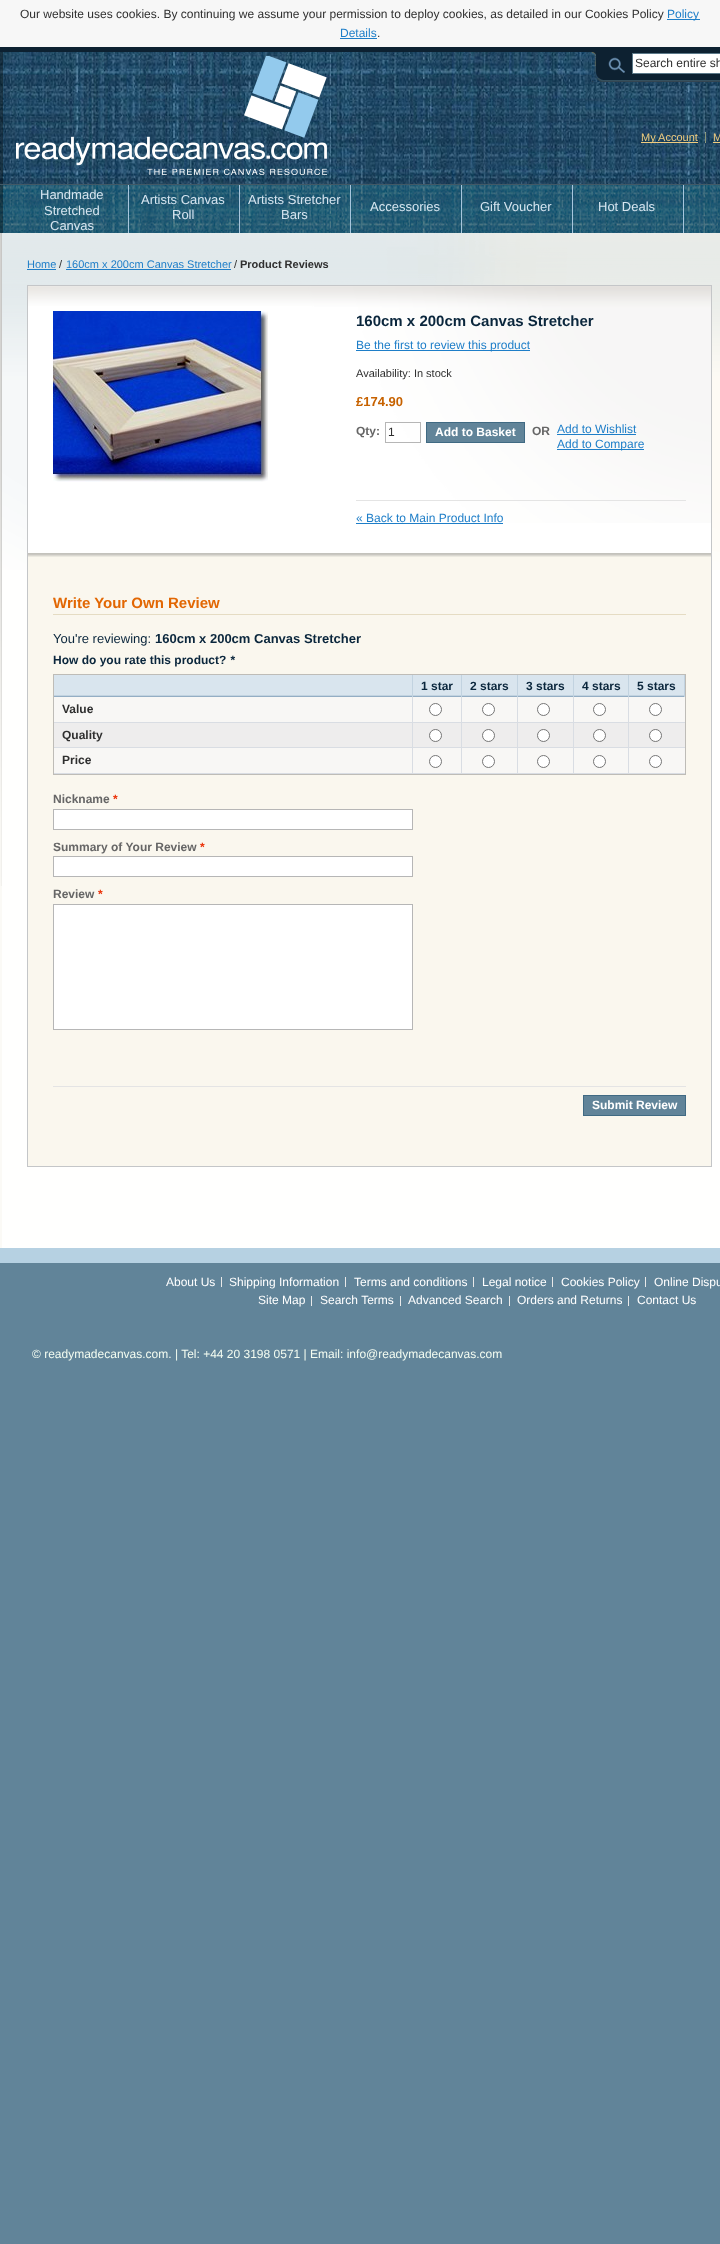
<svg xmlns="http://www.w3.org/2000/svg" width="720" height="2244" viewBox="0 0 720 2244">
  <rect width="100%" height="100%" fill="rgb(97,132,153)"/>
  <rect x="0" y="0" width="720" height="47" fill="rgb(247,247,247)"/>
  <text x="20" y="18" font-family="Liberation Sans" font-size="12" fill="rgb(47,47,47)">Our website uses cookies. By continuing we assume your permission to deploy cookies, as detailed in our Cookies Policy</text>
  <rect x="667" y="19" width="33" height="1" fill="rgb(30,126,200)"/>
  <g font-family="Liberation Sans" font-size="12" fill="rgb(30,126,200)">
    <text x="667" y="18">Policy</text>
    <text x="340" y="37">Details</text>
  </g>
  <rect x="340" y="38" width="37" height="1" fill="rgb(30,126,200)"/>
  <text x="377" y="37" font-family="Liberation Sans" font-size="12" fill="rgb(47,47,47)">.</text>
  <image x="0" y="52" width="720" height="132" href="pic1.png"/>
  <rect x="0" y="47" width="720" height="5" fill="rgb(13,33,49)"/>
  <rect x="0" y="184" width="720" height="1" fill="rgb(65,89,102)"/>
  <image x="16" y="56" width="311" height="119" href="pic2.png"/>
  <image x="592" y="52" width="128" height="30" href="pic3.png"/>
  <rect x="632.5" y="53.5" width="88" height="20" fill="rgb(255,255,255)" stroke="rgb(92,121,137)"/>
  <text x="635" y="67" font-family="Liberation Sans" font-size="12" fill="rgb(47,47,47)">Search entire sh</text>
  <image x="705" y="132" width="1" height="11" href="pic4.png"/>
  <rect x="641" y="142" width="57" height="1" fill="rgb(240,204,127)"/>
  <g font-family="Liberation Sans" font-size="11" fill="rgb(240,204,127)">
    <text x="641" y="141">My Account</text>
    <text x="713" y="141">M</text>
  </g>
  <rect x="713" y="142" width="7" height="1" fill="rgb(240,204,127)"/>
  <image x="0" y="185" width="720" height="48" href="pic5.png"/>
  <rect x="128" y="185" width="1" height="48" fill="rgb(167,198,221)"/>
  <g font-family="Liberation Sans" font-size="13" fill="rgb(214,229,240)">
    <text x="40" y="199">Handmade</text>
    <text x="44" y="215">Stretched</text>
    <text x="50" y="230">Canvas</text>
  </g>
  <rect x="239" y="185" width="1" height="48" fill="rgb(167,198,221)"/>
  <g font-family="Liberation Sans" font-size="13" fill="rgb(214,229,240)">
    <text x="141" y="204">Artists Canvas</text>
    <text x="172" y="219">Roll</text>
  </g>
  <rect x="350" y="185" width="1" height="48" fill="rgb(167,198,221)"/>
  <g font-family="Liberation Sans" font-size="13" fill="rgb(214,229,240)">
    <text x="248" y="204">Artists Stretcher</text>
    <text x="281" y="219">Bars</text>
  </g>
  <rect x="461" y="185" width="1" height="48" fill="rgb(167,198,221)"/>
  <text x="370" y="211" font-family="Liberation Sans" font-size="13" fill="rgb(214,229,240)">Accessories</text>
  <rect x="572" y="185" width="1" height="48" fill="rgb(167,198,221)"/>
  <text x="480" y="211" font-family="Liberation Sans" font-size="13" fill="rgb(214,229,240)">Gift Voucher</text>
  <rect x="683" y="185" width="1" height="48" fill="rgb(167,198,221)"/>
  <text x="598" y="211" font-family="Liberation Sans" font-size="13" fill="rgb(214,229,240)">Hot Deals</text>
  <rect x="0" y="886" width="2" height="362" fill="rgb(251,250,246)"/>
  <image x="0" y="233" width="2" height="653" href="pic6.png"/>
  <rect x="2" y="570" width="718" height="678" fill="rgb(255,255,254)"/>
  <image x="2" y="233" width="718" height="337" href="pic7.png"/>
  <text x="27" y="268" font-family="Liberation Sans" font-size="11" fill="rgb(30,126,200)">Home</text>
  <rect x="27" y="269" width="29" height="1" fill="rgb(30,126,200)"/>
  <text x="59" y="268" font-family="Liberation Sans" font-size="11" fill="rgb(47,47,47)">/</text>
  <text x="66" y="268" font-family="Liberation Sans" font-size="11" fill="rgb(30,126,200)">160cm x 200cm Canvas Stretcher</text>
  <rect x="66" y="269" width="165" height="1" fill="rgb(30,126,200)"/>
  <text x="234" y="268" font-family="Liberation Sans" font-size="11" fill="rgb(47,47,47)">/</text>
  <text x="240" y="268" font-family="Liberation Sans" font-size="11" font-weight="bold" fill="rgb(47,47,47)">Product Reviews</text>
  <rect x="27.5" y="285.5" width="684" height="881" fill="none" stroke="rgb(196,198,200)"/>
  <rect x="28" y="306" width="683" height="247" fill="rgb(255,255,255)"/>
  <image x="28" y="286" width="683" height="237" href="pic8.png"/>
  <image x="53" y="311" width="215" height="171" href="pic9.png"/>
  <text x="356" y="326" font-family="Liberation Sans" font-size="15" font-weight="bold" fill="rgb(10,38,60)">160cm x 200cm Canvas Stretcher</text>
  <rect x="356" y="350" width="174" height="1" fill="rgb(30,126,200)"/>
  <text x="356" y="349" font-family="Liberation Sans" font-size="12" fill="rgb(30,126,200)">Be the first to review this product</text>
  <text x="356" y="377" font-family="Liberation Sans" font-size="11" fill="rgb(47,47,47)">Availability: In stock</text>
  <text x="356" y="406" font-family="Liberation Sans" font-size="13" font-weight="bold" fill="rgb(199,98,0)">£174.90</text>
  <text x="356" y="435" font-family="Liberation Sans" font-size="12" font-weight="bold" fill="rgb(102,102,102)">Qty:</text>
  <rect x="385.5" y="422.5" width="35" height="20" fill="none" stroke="rgb(182,182,182)"/>
  <text x="388" y="436" font-family="Liberation Sans" font-size="12" fill="rgb(47,47,47)">1</text>
  <rect x="426.5" y="422.5" width="98" height="20" fill="rgb(97,132,153)" stroke="rgb(64,106,131)"/>
  <text x="435" y="436" font-family="Liberation Sans" font-size="12" font-weight="bold" fill="rgb(255,255,255)">Add to Basket</text>
  <text x="532" y="435" font-family="Liberation Sans" font-size="12" font-weight="bold" fill="rgb(102,102,102)">OR</text>
  <text x="557" y="433" font-family="Liberation Sans" font-size="12" fill="rgb(30,126,200)">Add to Wishlist</text>
  <rect x="557" y="434" width="79" height="1" fill="rgb(30,126,200)"/>
  <rect x="557" y="449" width="87" height="1" fill="rgb(30,126,200)"/>
  <text x="557" y="448" font-family="Liberation Sans" font-size="12" fill="rgb(30,126,200)">Add to Compare</text>
  <rect x="356" y="500" width="330" height="1" fill="rgb(228,228,228)"/>
  <text x="356" y="522" font-family="Liberation Sans" font-size="12" fill="rgb(30,126,200)">« Back to Main Product Info</text>
  <rect x="356" y="523" width="147" height="1" fill="rgb(30,126,200)"/>
  <rect x="28" y="557" width="683" height="609" fill="rgb(250,247,238)"/>
  <image x="28" y="553" width="683" height="4" href="pic10.png"/>
  <rect x="53" y="614" width="633" height="1" fill="rgb(229,220,195)"/>
  <text x="53" y="608" font-family="Liberation Sans" font-size="15" font-weight="bold" fill="rgb(226,103,3)">Write Your Own Review</text>
  <text x="53" y="643" font-family="Liberation Sans" font-size="13" fill="rgb(10,38,60)">You're reviewing:</text>
  <text x="155" y="643" font-family="Liberation Sans" font-size="13" font-weight="bold" fill="rgb(10,38,60)">160cm x 200cm Canvas Stretcher</text>
  <text x="53" y="664" font-family="Liberation Sans" font-size="12" font-weight="bold" fill="rgb(10,38,60)">How do you rate this product?</text>
  <text x="230" y="664" font-family="Liberation Sans" font-size="12" font-weight="bold" font-style="italic" fill="rgb(10,38,60)">*</text>
  <rect x="53.5" y="674.5" width="632" height="100" fill="none" stroke="rgb(190,188,183)"/>
  <rect x="54" y="675" width="358" height="20" fill="rgb(217,229,238)"/>
  <image x="54" y="695" width="358" height="2" href="pic11.png"/>
  <rect x="412" y="675" width="1" height="22" fill="rgb(194,211,224)"/>
  <rect x="413" y="675" width="48" height="20" fill="rgb(217,229,238)"/>
  <image x="413" y="695" width="48" height="2" href="pic12.png"/>
  <rect x="461" y="675" width="1" height="22" fill="rgb(194,211,224)"/>
  <text x="421" y="690" font-family="Liberation Sans" font-size="12" font-weight="bold" fill="rgb(10,38,60)">1 star</text>
  <rect x="462" y="675" width="55" height="20" fill="rgb(217,229,238)"/>
  <image x="462" y="695" width="55" height="2" href="pic13.png"/>
  <rect x="517" y="675" width="1" height="22" fill="rgb(194,211,224)"/>
  <text x="470" y="690" font-family="Liberation Sans" font-size="12" font-weight="bold" fill="rgb(10,38,60)">2 stars</text>
  <rect x="518" y="675" width="55" height="20" fill="rgb(217,229,238)"/>
  <image x="518" y="695" width="55" height="2" href="pic13.png"/>
  <rect x="573" y="675" width="1" height="22" fill="rgb(194,211,224)"/>
  <text x="526" y="690" font-family="Liberation Sans" font-size="12" font-weight="bold" fill="rgb(10,38,60)">3 stars</text>
  <rect x="574" y="675" width="54" height="20" fill="rgb(217,229,238)"/>
  <image x="574" y="695" width="54" height="2" href="pic14.png"/>
  <rect x="628" y="675" width="1" height="22" fill="rgb(194,211,224)"/>
  <text x="582" y="690" font-family="Liberation Sans" font-size="12" font-weight="bold" fill="rgb(10,38,60)">4 stars</text>
  <rect x="629" y="675" width="55" height="20" fill="rgb(217,229,238)"/>
  <image x="629" y="695" width="55" height="2" href="pic13.png"/>
  <rect x="684" y="675" width="1" height="22" fill="rgb(194,211,224)"/>
  <text x="637" y="690" font-family="Liberation Sans" font-size="12" font-weight="bold" fill="rgb(10,38,60)">5 stars</text>
  <rect x="54" y="697" width="631" height="25" fill="rgb(248,247,245)"/>
  <rect x="461" y="697" width="1" height="26" fill="rgb(217,221,227)"/>
  <rect x="413" y="722" width="49" height="1" fill="rgb(217,221,227)"/>
  <circle cx="435.5" cy="709.5" r="6" fill="rgb(255,255,255)" stroke="rgb(118,118,118)"/>
  <rect x="517" y="697" width="1" height="26" fill="rgb(217,221,227)"/>
  <rect x="462" y="722" width="56" height="1" fill="rgb(217,221,227)"/>
  <circle cx="488.5" cy="709.5" r="6" fill="rgb(255,255,255)" stroke="rgb(118,118,118)"/>
  <rect x="573" y="697" width="1" height="26" fill="rgb(217,221,227)"/>
  <rect x="518" y="722" width="56" height="1" fill="rgb(217,221,227)"/>
  <circle cx="543.5" cy="709.5" r="6" fill="rgb(255,255,255)" stroke="rgb(118,118,118)"/>
  <rect x="628" y="697" width="1" height="26" fill="rgb(217,221,227)"/>
  <rect x="574" y="722" width="111" height="1" fill="rgb(217,221,227)"/>
  <circle cx="599.5" cy="709.5" r="6" fill="rgb(255,255,255)" stroke="rgb(118,118,118)"/>
  <rect x="412" y="697" width="1" height="26" fill="rgb(217,221,227)"/>
  <rect x="54" y="722" width="359" height="1" fill="rgb(217,221,227)"/>
  <text x="62" y="713" font-family="Liberation Sans" font-size="12" font-weight="bold" fill="rgb(47,47,47)">Value</text>
  <circle cx="655.5" cy="709.5" r="6" fill="rgb(255,255,255)" stroke="rgb(118,118,118)"/>
  <rect x="54" y="723" width="631" height="24" fill="rgb(238,237,237)"/>
  <rect x="461" y="723" width="1" height="25" fill="rgb(217,221,227)"/>
  <rect x="413" y="747" width="49" height="1" fill="rgb(217,221,227)"/>
  <circle cx="435.5" cy="735.5" r="6" fill="rgb(255,255,255)" stroke="rgb(118,118,118)"/>
  <rect x="517" y="723" width="1" height="25" fill="rgb(217,221,227)"/>
  <rect x="462" y="747" width="56" height="1" fill="rgb(217,221,227)"/>
  <circle cx="488.5" cy="735.5" r="6" fill="rgb(255,255,255)" stroke="rgb(118,118,118)"/>
  <rect x="573" y="723" width="1" height="25" fill="rgb(217,221,227)"/>
  <rect x="518" y="747" width="56" height="1" fill="rgb(217,221,227)"/>
  <circle cx="543.5" cy="735.5" r="6" fill="rgb(255,255,255)" stroke="rgb(118,118,118)"/>
  <rect x="628" y="723" width="1" height="25" fill="rgb(217,221,227)"/>
  <rect x="574" y="747" width="111" height="1" fill="rgb(217,221,227)"/>
  <circle cx="599.5" cy="735.5" r="6" fill="rgb(255,255,255)" stroke="rgb(118,118,118)"/>
  <rect x="412" y="723" width="1" height="25" fill="rgb(217,221,227)"/>
  <rect x="54" y="747" width="359" height="1" fill="rgb(217,221,227)"/>
  <text x="62" y="739" font-family="Liberation Sans" font-size="12" font-weight="bold" fill="rgb(47,47,47)">Quality</text>
  <circle cx="655.5" cy="735.5" r="6" fill="rgb(255,255,255)" stroke="rgb(118,118,118)"/>
  <rect x="54" y="748" width="631" height="25" fill="rgb(248,247,245)"/>
  <rect x="412" y="748" width="1" height="26" fill="rgb(217,221,227)"/>
  <rect x="54" y="773" width="359" height="1" fill="rgb(217,221,227)"/>
  <text x="62" y="764" font-family="Liberation Sans" font-size="12" font-weight="bold" fill="rgb(47,47,47)">Price</text>
  <rect x="461" y="748" width="1" height="26" fill="rgb(217,221,227)"/>
  <rect x="413" y="773" width="49" height="1" fill="rgb(217,221,227)"/>
  <circle cx="435.5" cy="761.5" r="6" fill="rgb(255,255,255)" stroke="rgb(118,118,118)"/>
  <rect x="517" y="748" width="1" height="26" fill="rgb(217,221,227)"/>
  <rect x="462" y="773" width="56" height="1" fill="rgb(217,221,227)"/>
  <circle cx="488.5" cy="761.5" r="6" fill="rgb(255,255,255)" stroke="rgb(118,118,118)"/>
  <rect x="573" y="748" width="1" height="26" fill="rgb(217,221,227)"/>
  <rect x="518" y="773" width="56" height="1" fill="rgb(217,221,227)"/>
  <circle cx="543.5" cy="761.5" r="6" fill="rgb(255,255,255)" stroke="rgb(118,118,118)"/>
  <rect x="628" y="748" width="1" height="26" fill="rgb(217,221,227)"/>
  <rect x="574" y="773" width="111" height="1" fill="rgb(217,221,227)"/>
  <circle cx="599.5" cy="761.5" r="6" fill="rgb(255,255,255)" stroke="rgb(118,118,118)"/>
  <circle cx="655.5" cy="761.5" r="6" fill="rgb(255,255,255)" stroke="rgb(118,118,118)"/>
  <text x="53" y="803" font-family="Liberation Sans" font-size="12" font-weight="bold" fill="rgb(102,102,102)">Nickname</text>
  <text x="113" y="803" font-family="Liberation Sans" font-size="12" font-weight="bold" fill="rgb(235,52,10)">*</text>
  <rect x="53.5" y="809.5" width="359" height="20" fill="rgb(255,255,255)" stroke="rgb(182,182,182)"/>
  <text x="53" y="851" font-family="Liberation Sans" font-size="12" font-weight="bold" fill="rgb(102,102,102)">Summary of Your Review</text>
  <text x="200" y="851" font-family="Liberation Sans" font-size="12" font-weight="bold" fill="rgb(235,52,10)">*</text>
  <rect x="53.5" y="856.5" width="359" height="20" fill="rgb(255,255,255)" stroke="rgb(182,182,182)"/>
  <text x="53" y="898" font-family="Liberation Sans" font-size="12" font-weight="bold" fill="rgb(102,102,102)">Review</text>
  <text x="98" y="898" font-family="Liberation Sans" font-size="12" font-weight="bold" fill="rgb(235,52,10)">*</text>
  <rect x="53.5" y="904.5" width="359" height="125" fill="rgb(255,255,255)" stroke="rgb(182,182,182)"/>
  <rect x="53" y="1086" width="633" height="1" fill="rgb(228,228,228)"/>
  <rect x="583.5" y="1095.5" width="102" height="20" fill="rgb(97,132,153)" stroke="rgb(64,106,131)"/>
  <text x="592" y="1109" font-family="Liberation Sans" font-size="12" font-weight="bold" fill="rgb(255,255,255)">Submit Review</text>
  <rect x="0" y="1248" width="720" height="15" fill="rgb(182,209,226)"/>
  <text x="166" y="1286" font-family="Liberation Sans" font-size="12" fill="rgb(255,255,255)">About Us</text>
  <rect x="221" y="1277" width="1" height="10" fill="rgb(233,233,233)"/>
  <text x="229" y="1286" font-family="Liberation Sans" font-size="12" fill="rgb(255,255,255)">Shipping Information</text>
  <rect x="345" y="1277" width="1" height="10" fill="rgb(233,233,233)"/>
  <text x="354" y="1286" font-family="Liberation Sans" font-size="12" fill="rgb(255,255,255)">Terms and conditions</text>
  <rect x="473" y="1277" width="1" height="10" fill="rgb(233,233,233)"/>
  <text x="482" y="1286" font-family="Liberation Sans" font-size="12" fill="rgb(255,255,255)">Legal notice</text>
  <rect x="552" y="1277" width="1" height="10" fill="rgb(233,233,233)"/>
  <text x="561" y="1286" font-family="Liberation Sans" font-size="12" fill="rgb(255,255,255)">Cookies Policy</text>
  <rect x="645" y="1277" width="1" height="10" fill="rgb(233,233,233)"/>
  <g font-family="Liberation Sans" font-size="12" fill="rgb(255,255,255)">
    <text x="654" y="1286">Online Dispu</text>
    <text x="258" y="1304">Site Map</text>
  </g>
  <rect x="311" y="1296" width="1" height="10" fill="rgb(233,233,233)"/>
  <text x="320" y="1304" font-family="Liberation Sans" font-size="12" fill="rgb(255,255,255)">Search Terms</text>
  <rect x="400" y="1296" width="1" height="10" fill="rgb(233,233,233)"/>
  <text x="408" y="1304" font-family="Liberation Sans" font-size="12" fill="rgb(255,255,255)">Advanced Search</text>
  <rect x="509" y="1296" width="1" height="10" fill="rgb(233,233,233)"/>
  <text x="517" y="1304" font-family="Liberation Sans" font-size="12" fill="rgb(255,255,255)">Orders and Returns</text>
  <rect x="628" y="1296" width="1" height="10" fill="rgb(233,233,233)"/>
  <text x="637" y="1304" font-family="Liberation Sans" font-size="12" fill="rgb(255,255,255)">Contact Us</text>
  <text x="32" y="1358" font-family="Liberation Sans" font-size="12" fill="rgb(243,252,241)">© readymadecanvas.com. | Tel: +44 20 3198 0571 | Email: info@readymadecanvas.com</text>
</svg>
